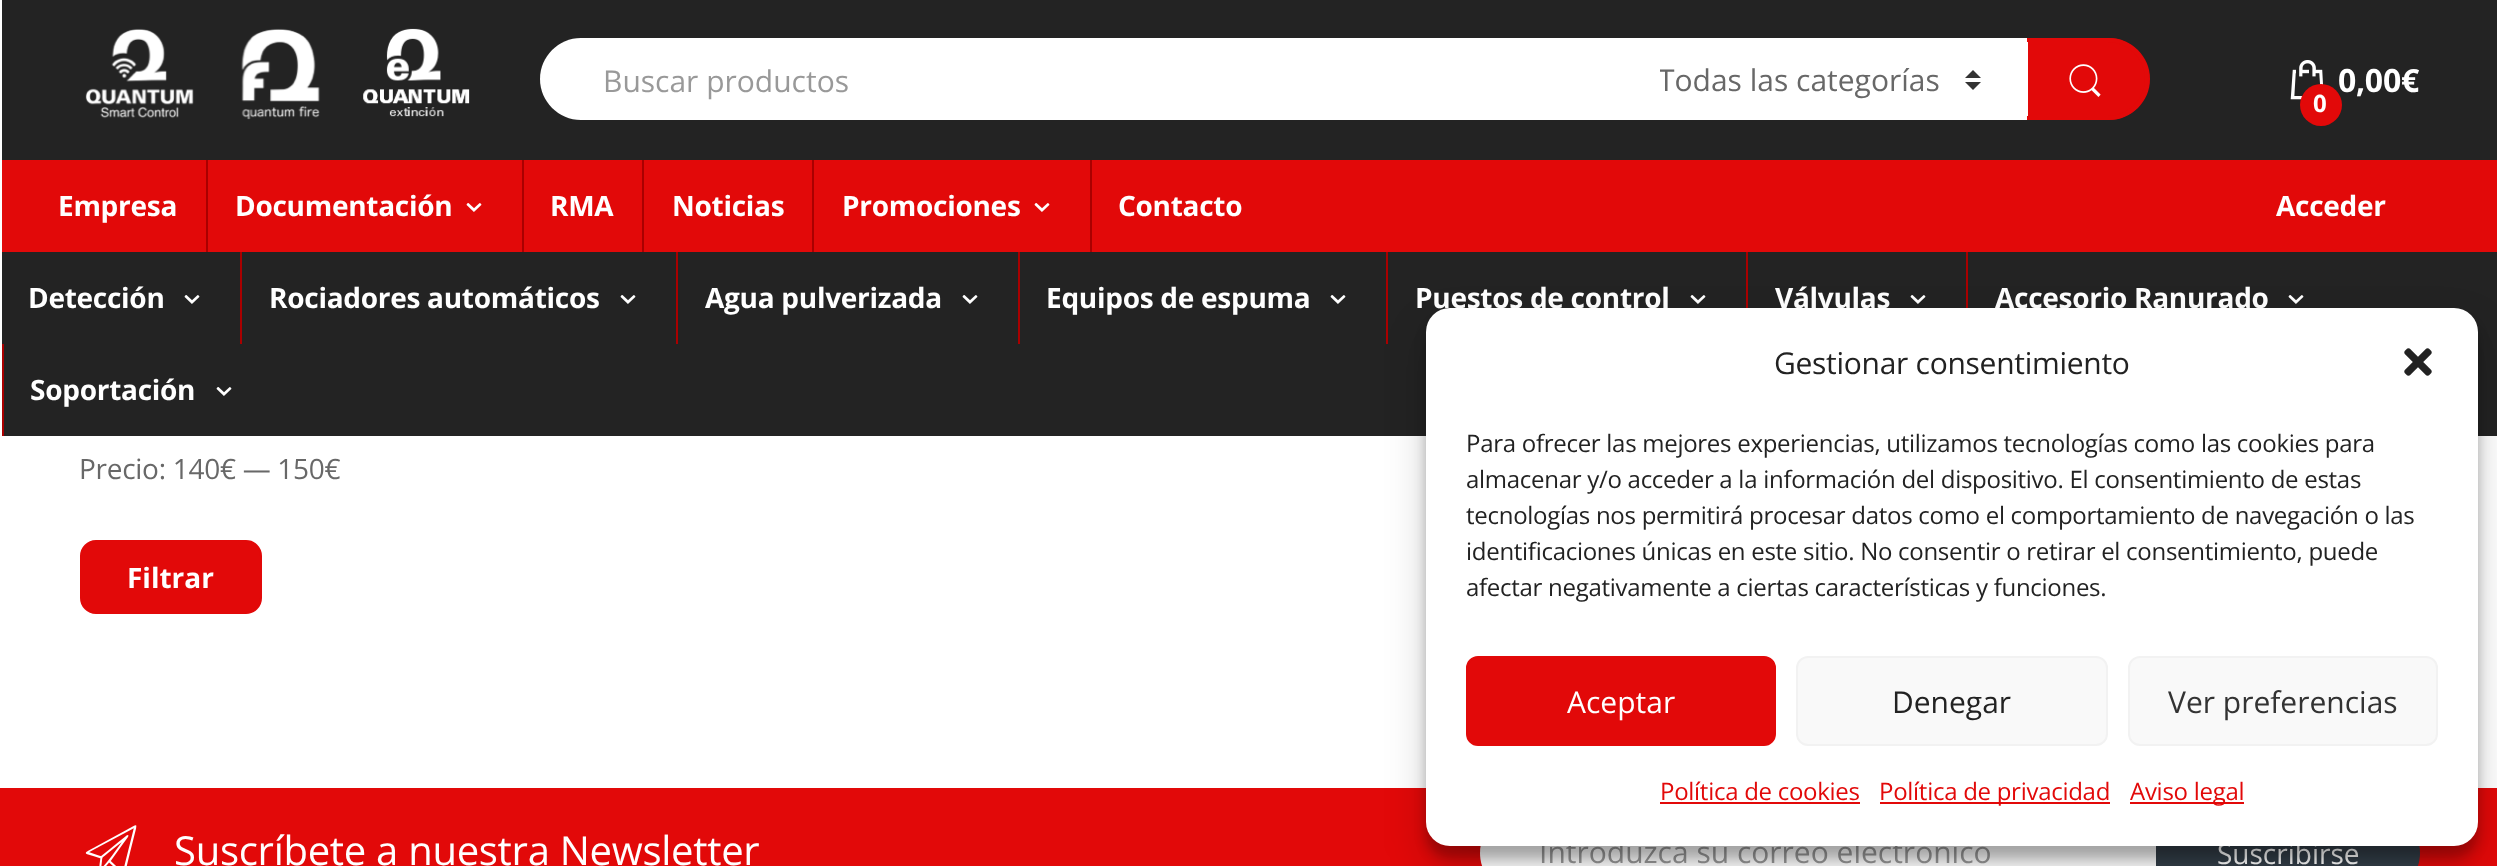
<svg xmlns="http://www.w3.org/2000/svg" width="2497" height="866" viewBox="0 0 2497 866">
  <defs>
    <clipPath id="clip1"><rect x="1660" y="58" width="290" height="42"/></clipPath>
  </defs>
  <rect width="100%" height="100%" fill="rgb(255,255,255)"/>
  <rect x="2" y="0" width="2495" height="436" fill="rgb(35,35,35)"/>
  <image x="85" y="28" width="385" height="92" href="pic1.png"/>
  <path d="M581 38H1614V120H581C558.5 120 540 101.5 540 79C540 56.5 558.5 38 581 38Z" fill="rgb(255,255,255)"/>
  <text x="603" y="92" font-family="Open Sans" font-size="30" fill="rgb(153,153,153)">Buscar productos</text>
  <rect x="1614" y="38" width="414" height="82" fill="rgb(255,255,255)"/>
  <image x="1965" y="70" width="16" height="20" href="pic2.png"/>
  <g clip-path="url(#clip1)">
    <text x="1658" y="91" font-family="Open Sans" font-size="30" fill="rgb(104,104,104)">Todas las categorías</text>
  </g>
  <path d="M2028 38H2109C2131.5 38 2150 56.5 2150 79C2150 101.5 2131.5 120 2109 120H2028Z" fill="rgb(226,9,9)"/>
  <path d="M2027 38H2108C2131 38 2149 56 2149 79C2149 102 2131 120 2108 120H2027ZM2027 42H2108C2128 42 2145 59 2145 79C2145 99 2128 116 2108 116H2027Z" fill="rgb(226,9,9)" fill-rule="evenodd"/>
  <image x="2069" y="64" width="32" height="33" href="pic3.png"/>
  <image x="2290" y="60" width="33" height="40" href="pic4.png"/>
  <text x="2338" y="92" font-family="Open Sans" font-size="32" font-weight="bold" letter-spacing="-0.28" fill="rgb(255,255,255)">0,00€</text>
  <circle cx="2321" cy="105" r="21" fill="rgb(226,9,9)"/>
  <text x="2313" y="112" font-family="Open Sans" font-size="24" font-weight="bold" letter-spacing="-0.28" fill="rgb(255,255,255)">0</text>
  <rect x="2" y="160" width="2495" height="92" fill="rgb(226,9,9)"/>
  <text x="58" y="216" font-family="Open Sans" font-size="28" font-weight="bold" letter-spacing="-0.28" fill="rgb(255,255,255)">Empresa</text>
  <rect x="206" y="160" width="2" height="92" fill="rgb(170,0,0)"/>
  <text x="235" y="216" font-family="Open Sans" font-size="28" font-weight="bold" letter-spacing="-0.28" fill="rgb(255,255,255)">Documentación</text>
  <image x="466" y="203" width="16" height="9" href="pic5.png"/>
  <rect x="522" y="160" width="2" height="92" fill="rgb(170,0,0)"/>
  <text x="550" y="216" font-family="Open Sans" font-size="28" font-weight="bold" letter-spacing="-0.28" fill="rgb(255,255,255)">RMA</text>
  <rect x="642" y="160" width="2" height="92" fill="rgb(170,0,0)"/>
  <text x="672" y="216" font-family="Open Sans" font-size="28" font-weight="bold" letter-spacing="-0.28" fill="rgb(255,255,255)">Noticias</text>
  <rect x="812" y="160" width="2" height="92" fill="rgb(170,0,0)"/>
  <text x="842" y="216" font-family="Open Sans" font-size="28" font-weight="bold" letter-spacing="-0.28" fill="rgb(255,255,255)">Promociones</text>
  <image x="1034" y="203" width="16" height="9" href="pic5.png"/>
  <rect x="1090" y="160" width="2" height="92" fill="rgb(170,0,0)"/>
  <g font-family="Open Sans" font-size="28" font-weight="bold" letter-spacing="-0.28" fill="rgb(255,255,255)">
    <text x="1118" y="216">Contacto</text>
    <text x="2276" y="216">Acceder</text>
    <text x="28" y="308">Detección</text>
  </g>
  <image x="184" y="295" width="16" height="9" href="pic6.png"/>
  <rect x="240" y="252" width="2" height="92" fill="rgb(170,0,0)"/>
  <text x="269" y="308" font-family="Open Sans" font-size="28" font-weight="bold" letter-spacing="-0.28" fill="rgb(255,255,255)">Rociadores automáticos</text>
  <image x="620" y="295" width="16" height="9" href="pic6.png"/>
  <rect x="676" y="252" width="2" height="92" fill="rgb(170,0,0)"/>
  <text x="705" y="308" font-family="Open Sans" font-size="28" font-weight="bold" letter-spacing="-0.28" fill="rgb(255,255,255)">Agua pulverizada</text>
  <image x="962" y="295" width="16" height="9" href="pic6.png"/>
  <rect x="1018" y="252" width="2" height="92" fill="rgb(170,0,0)"/>
  <text x="1046" y="308" font-family="Open Sans" font-size="28" font-weight="bold" letter-spacing="-0.28" fill="rgb(255,255,255)">Equipos de espuma</text>
  <image x="1330" y="295" width="16" height="9" href="pic6.png"/>
  <rect x="1386" y="252" width="2" height="92" fill="rgb(170,0,0)"/>
  <text x="1415" y="308" font-family="Open Sans" font-size="28" font-weight="bold" letter-spacing="-0.28" fill="rgb(255,255,255)">Puestos de control</text>
  <image x="1690" y="295" width="16" height="9" href="pic6.png"/>
  <rect x="1746" y="252" width="2" height="56" fill="rgb(170,0,0)"/>
  <text x="1775" y="308" font-family="Open Sans" font-size="28" font-weight="bold" letter-spacing="-0.28" fill="rgb(255,255,255)">Válvulas</text>
  <image x="1910" y="295" width="16" height="9" href="pic6.png"/>
  <rect x="1966" y="252" width="2" height="56" fill="rgb(170,0,0)"/>
  <text x="1995" y="308" font-family="Open Sans" font-size="28" font-weight="bold" letter-spacing="-0.28" fill="rgb(255,255,255)">Accesorio Ranurado</text>
  <image x="2288" y="295" width="16" height="9" href="pic6.png"/>
  <rect x="2" y="344" width="2" height="92" fill="rgb(170,0,0)"/>
  <text x="30" y="400" font-family="Open Sans" font-size="28" font-weight="bold" letter-spacing="-0.28" fill="rgb(255,255,255)">Soportación</text>
  <image x="216" y="387" width="16" height="9" href="pic6.png"/>
  <text x="79" y="479" font-family="Open Sans" font-size="28" letter-spacing="-0.28" fill="rgb(104,104,104)">Precio: 140€ — 150€</text>
  <rect x="81" y="541" width="180" height="72" rx="15" fill="rgb(226,9,9)" stroke="rgb(226,9,9)" stroke-width="2"/>
  <text x="127" y="588" font-family="Open Sans" font-size="28" font-weight="bold" fill="rgb(255,255,255)">Filtrar</text>
  <rect x="0" y="788" width="2497" height="78" fill="rgb(226,9,9)"/>
  <image x="85" y="825" width="52" height="41" href="pic7.png"/>
  <text x="174" y="865" font-family="Open Sans" font-size="40" letter-spacing="-0.28" fill="rgb(255,255,255)">Suscríbete a nuestra Newsletter</text>
  <path d="M1521 812H2158V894H1521C1498.5 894 1480 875.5 1480 853C1480 830.5 1498.5 812 1521 812Z" fill="rgb(255,255,255)"/>
  <text x="1539" y="863" font-family="Open Sans" font-size="30" fill="rgb(153,153,153)">Introduzca su correo electrónico</text>
  <path d="M2156 812H2379C2401.5 812 2420 830.5 2420 853C2420 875.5 2401.5 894 2379 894H2156Z" fill="rgb(51,62,72)"/>
  <text x="2217" y="864" font-family="Open Sans" font-size="28" fill="rgb(255,255,255)">Suscribirse</text>
  <rect x="1426" y="320" width="1052" height="538" rx="24" fill="rgba(0,0,0,0.23)" filter="blur(6px)"/>
  <rect x="1426" y="328" width="1052" height="538" rx="24" fill="rgba(0,0,0,0.19)" filter="blur(20px)"/>
  <rect x="1426" y="308" width="1052" height="538" rx="24" fill="rgb(255,255,255)"/>
  <text x="1774" y="374" font-family="Open Sans" font-size="30" letter-spacing="-0.28" fill="rgb(34,34,34)">Gestionar consentimiento</text>
  <image x="2404" y="348" width="28" height="28" href="pic8.png"/>
  <g font-family="Open Sans" font-size="24" letter-spacing="-0.28" fill="rgb(34,34,34)">
    <text>
      <tspan x="1466" y="452">Para ofrecer las mejores experiencias, utilizamos tecnologías como las cookies para</tspan>
      <tspan x="1466" y="488">almacenar y/o acceder a la información del dispositivo. El consentimiento de estas</tspan>
      <tspan x="1466" y="524">tecnologías nos permitirá procesar datos como el comportamiento de navegación o las</tspan>
      <tspan x="1466" y="560">identificaciones únicas en este sitio. No consentir o retirar el consentimiento, puede</tspan>
      <tspan x="1466" y="596">afectar negativamente a ciertas características y funciones.</tspan>
    </text>
  </g>
  <rect x="1467" y="657" width="308" height="88" rx="11" fill="rgb(226,9,9)" stroke="rgb(226,9,9)" stroke-width="2"/>
  <text x="1567" y="713" font-family="Open Sans" font-size="30" fill="rgb(255,255,255)">Aceptar</text>
  <rect x="1797" y="657" width="310" height="88" rx="11" fill="rgb(249,249,249)" stroke="rgb(242,242,242)" stroke-width="2"/>
  <text x="1892" y="713" font-family="Open Sans" font-size="30" fill="rgb(34,34,34)">Denegar</text>
  <rect x="2129" y="657" width="308" height="88" rx="11" fill="rgb(249,249,249)" stroke="rgb(242,242,242)" stroke-width="2"/>
  <text x="2168" y="713" font-family="Open Sans" font-size="30" fill="rgb(51,51,51)">Ver preferencias</text>
  <text x="1660" y="800" font-family="Open Sans" font-size="24" letter-spacing="-0.28" fill="rgb(226,9,9)">Política de cookies</text>
  <rect x="1660" y="802" width="200" height="2" fill="rgb(226,9,9)"/>
  <rect x="1880" y="802" width="230" height="2" fill="rgb(226,9,9)"/>
  <text x="1879" y="800" font-family="Open Sans" font-size="24" letter-spacing="-0.28" fill="rgb(226,9,9)">Política de privacidad</text>
  <rect x="2130" y="802" width="114" height="2" fill="rgb(226,9,9)"/>
  <text x="2130" y="800" font-family="Open Sans" font-size="24" letter-spacing="-0.28" fill="rgb(226,9,9)">Aviso legal</text>
</svg>
